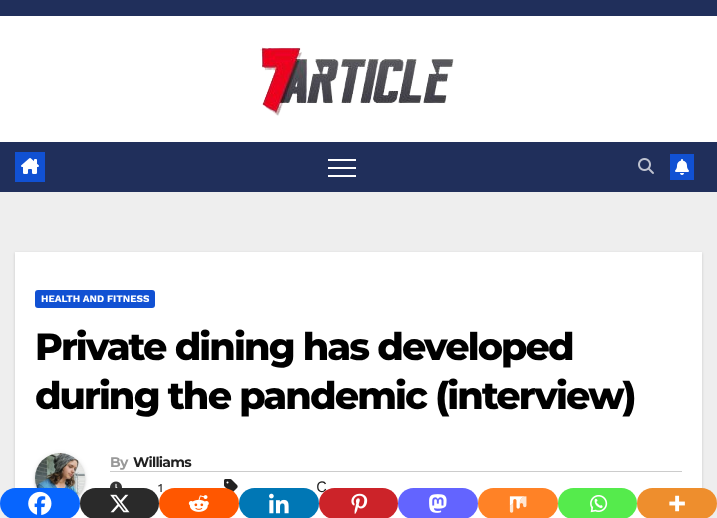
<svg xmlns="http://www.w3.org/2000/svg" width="717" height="518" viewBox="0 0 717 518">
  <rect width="100%" height="100%" fill="rgb(238,238,238)"/>
  <rect x="0" y="0" width="717" height="16" fill="rgb(32,47,91)"/>
  <rect x="0" y="16" width="717" height="126" fill="rgb(255,255,255)"/>
  <image x="260" y="47" width="194" height="69" href="pic1.png"/>
  <rect x="0" y="142" width="717" height="50" fill="rgb(32,47,91)"/>
  <rect x="15" y="152" width="30" height="30" fill="rgb(17,81,211)"/>
  <image x="21" y="158" width="18" height="16" href="pic2.png"/>
  <rect x="328" y="159" width="28" height="2" fill="rgb(255,255,255)"/>
  <rect x="328" y="167" width="28" height="2" fill="rgb(255,255,255)"/>
  <rect x="328" y="175" width="28" height="2" fill="rgb(255,255,255)"/>
  <image x="638" y="158" width="16" height="16" href="pic3.png"/>
  <rect x="670" y="154" width="24" height="26" fill="rgb(17,81,211)"/>
  <image x="675" y="159" width="14" height="16" href="pic4.png"/>
  <rect x="15" y="253" width="687" height="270" fill="rgba(0,0,0,0.15)" filter="blur(1.5px)"/>
  <rect x="15" y="252" width="687" height="266" fill="rgb(255,255,255)"/>
  <rect x="35" y="290" width="120" height="18" rx="3" fill="rgb(17,81,211)"/>
  <text x="41" y="302" font-family="Work Sans" font-size="10" font-weight="bold" fill="rgb(255,255,255)">HEALTH AND FITNESS</text>
  <g font-family="Montserrat" font-size="38" font-weight="800" letter-spacing="-1.9" fill="rgb(0,0,0)">
    <text>
      <tspan x="35" y="360">Private dining has developed</tspan>
      <tspan x="35" y="409">during the pandemic (interview)</tspan>
    </text>
  </g>
  <rect x="35" y="454" width="50" height="50" rx="25" fill="rgba(0,0,0,0.12)" filter="blur(2.5px)"/>
  <rect x="37" y="458" width="46" height="46" rx="23" fill="rgba(0,0,0,0.2)" filter="blur(0.5px)"/>
  <rect x="35" y="455" width="50" height="50" rx="25" fill="rgba(0,0,0,0.14)" filter="blur(1px)"/>
  <image x="35" y="453" width="50" height="43" href="pic5.png"/>
  <rect x="110" y="471" width="572" height="1" fill="rgb(204,204,204)"/>
  <text x="110" y="467" font-family="Montserrat" font-size="14" font-weight="bold" letter-spacing="-0.75" fill="rgb(153,153,153)">By</text>
  <text x="133" y="467" font-family="Montserrat" font-size="14" font-weight="bold" letter-spacing="-0.75" fill="rgb(33,33,33)">Williams</text>
  <image x="110" y="481" width="12" height="7" href="pic6.png"/>
  <text x="158" y="492" font-family="Work Sans" font-size="12" font-weight="500" fill="rgb(51,51,51)">1</text>
  <image x="224" y="479" width="14" height="13" href="pic7.png"/>
  <text x="316" y="492" font-family="Work Sans" font-size="16" fill="rgb(33,33,33)">C</text>
  <rect x="0" y="488" width="80" height="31" rx="15.5" fill="rgb(7,101,254)"/>
  <image x="28" y="491" width="24" height="24" href="pic8.png"/>
  <rect x="80" y="488" width="79" height="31" rx="15.5" fill="rgb(42,42,42)"/>
  <image x="110" y="494" width="20" height="19" href="pic9.png"/>
  <rect x="159" y="488" width="80" height="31" rx="15.5" fill="rgb(255,87,0)"/>
  <image x="188" y="495" width="21" height="17" href="pic10.png"/>
  <rect x="239" y="488" width="80" height="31" rx="15.5" fill="rgb(0,119,181)"/>
  <image x="269" y="493" width="20" height="21" href="pic11.png"/>
  <rect x="319" y="488" width="79" height="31" rx="15.5" fill="rgb(204,35,41)"/>
  <image x="351" y="493" width="17" height="21" href="pic12.png"/>
  <rect x="398" y="488" width="80" height="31" rx="15.5" fill="rgb(99,100,255)"/>
  <image x="429" y="494" width="18" height="19" href="pic13.png"/>
  <rect x="478" y="488" width="80" height="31" rx="15.5" fill="rgb(255,130,38)"/>
  <image x="509" y="496" width="18" height="17" href="pic14.png"/>
  <rect x="558" y="488" width="79" height="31" rx="15.5" fill="rgb(85,235,76)"/>
  <image x="590" y="495" width="18" height="18" href="pic15.png"/>
  <rect x="637" y="488" width="80" height="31" rx="15.5" fill="rgb(238,142,45)"/>
  <image x="669" y="495" width="16" height="17" href="pic16.png"/>
</svg>
